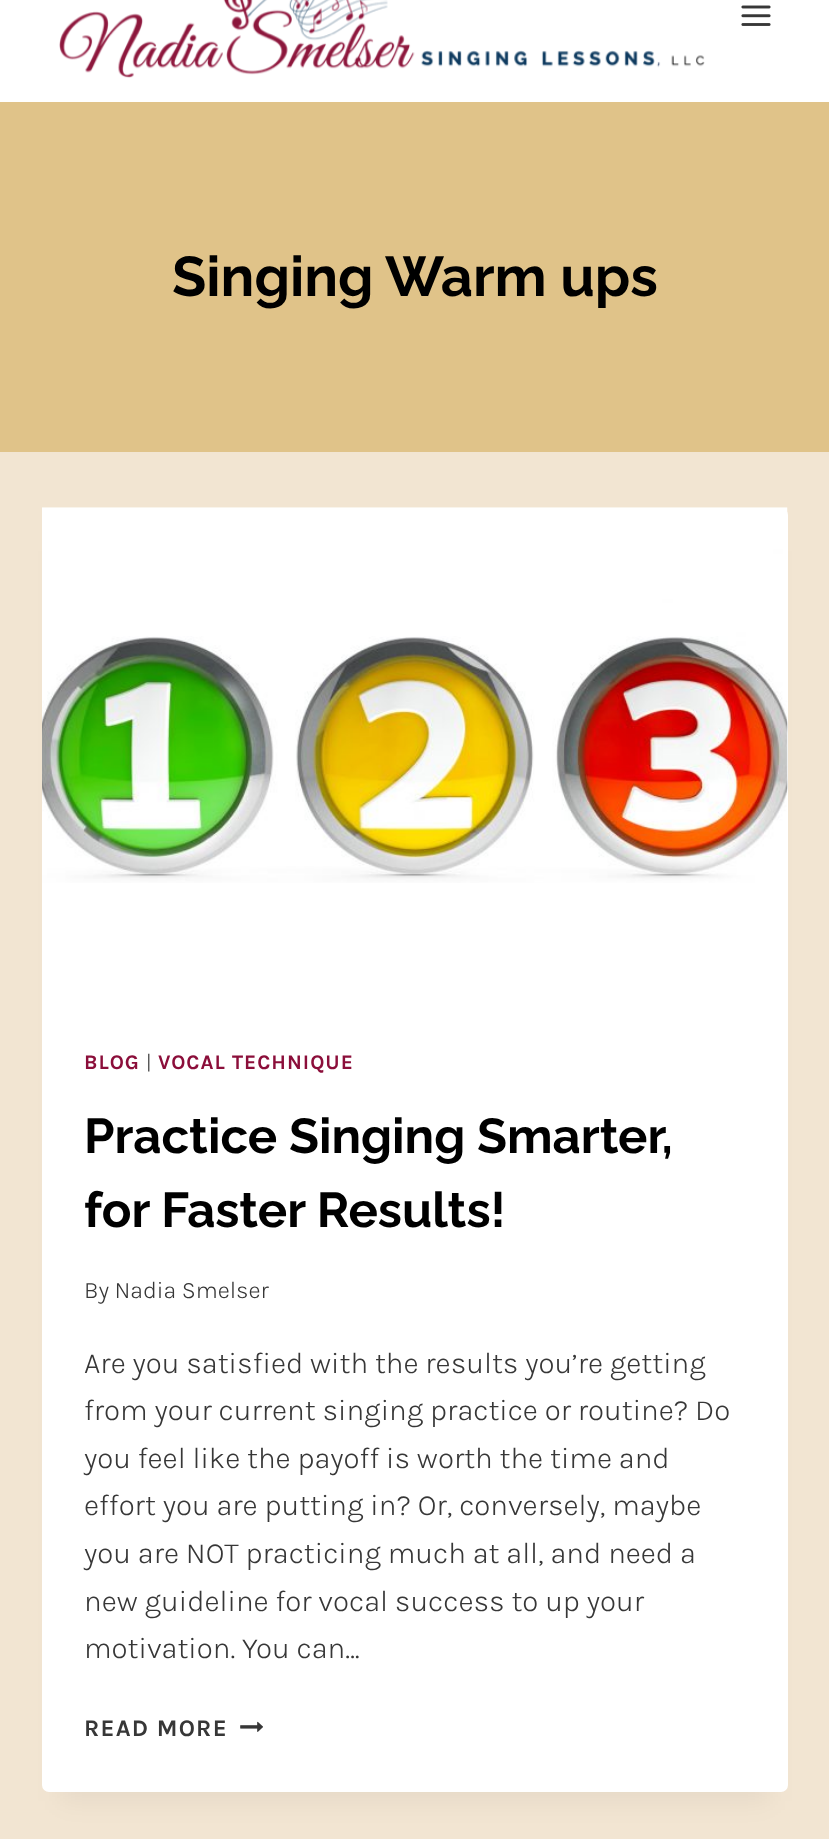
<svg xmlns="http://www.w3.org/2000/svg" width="829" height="1839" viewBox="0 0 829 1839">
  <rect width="100%" height="100%" fill="rgb(242,229,210)"/>
  <rect x="0" y="0" width="829" height="102" fill="rgb(255,255,255)"/>
  <image x="59" y="0" width="646" height="78" href="pic1.png"/>
  <image x="741" y="5" width="30" height="21" href="pic2.png"/>
  <rect x="0" y="102" width="829" height="350" fill="rgb(224,195,137)"/>
  <text x="172" y="296" font-family="Raleway" font-size="56" font-weight="bold" fill="rgb(0,0,0)">Singing Warm ups</text>
  <rect x="60" y="551" width="710" height="1250" fill="rgba(0,0,0,0.05)" filter="blur(13px)"/>
  <rect x="42" y="508" width="746" height="1284" rx="7" fill="rgb(255,255,255)"/>
  <image x="42" y="507" width="746" height="376" href="pic3.png"/>
  <text x="84" y="1069" font-family="Karla" font-size="20.75" font-weight="bold" letter-spacing="1" fill="rgb(139,14,58)">BLOG</text>
  <text x="146" y="1069" font-family="Karla" font-size="20.75" font-weight="300" letter-spacing="1" fill="rgb(55,55,55)">|</text>
  <text x="158" y="1069" font-family="Karla" font-size="20.75" font-weight="bold" letter-spacing="1" fill="rgb(139,14,58)">VOCAL TECHNIQUE</text>
  <g font-family="Raleway" font-size="49" font-weight="bold" fill="rgb(0,0,0)">
    <text>
      <tspan x="84" y="1153">Practice Singing Smarter,</tspan>
      <tspan x="84" y="1227">for Faster Results!</tspan>
    </text>
  </g>
  <text x="84" y="1298" font-family="Karla" font-size="23.75" font-weight="300" fill="rgb(55,55,55)">By Nadia Smelser</text>
  <g font-family="Karla" font-size="29.75" font-weight="300" fill="rgb(55,55,55)">
    <text>
      <tspan x="84" y="1373">Are you satisfied with the results you’re getting</tspan>
      <tspan x="84" y="1420">from your current singing practice or routine? Do</tspan>
      <tspan x="84" y="1468">you feel like the payoff is worth the time and</tspan>
      <tspan x="84" y="1515">effort you are putting in? Or, conversely, maybe</tspan>
      <tspan x="84" y="1563">you are NOT practicing much at all, and need a</tspan>
      <tspan x="84" y="1611">new guideline for vocal success to up your</tspan>
      <tspan x="84" y="1658">motivation. You can…</tspan>
    </text>
  </g>
  <text x="84" y="1736" font-family="Karla" font-size="23.75" font-weight="bold" letter-spacing="1.25" fill="rgb(55,55,55)">READ MORE</text>
  <image x="240" y="1721" width="23" height="11" href="pic4.png"/>
</svg>
